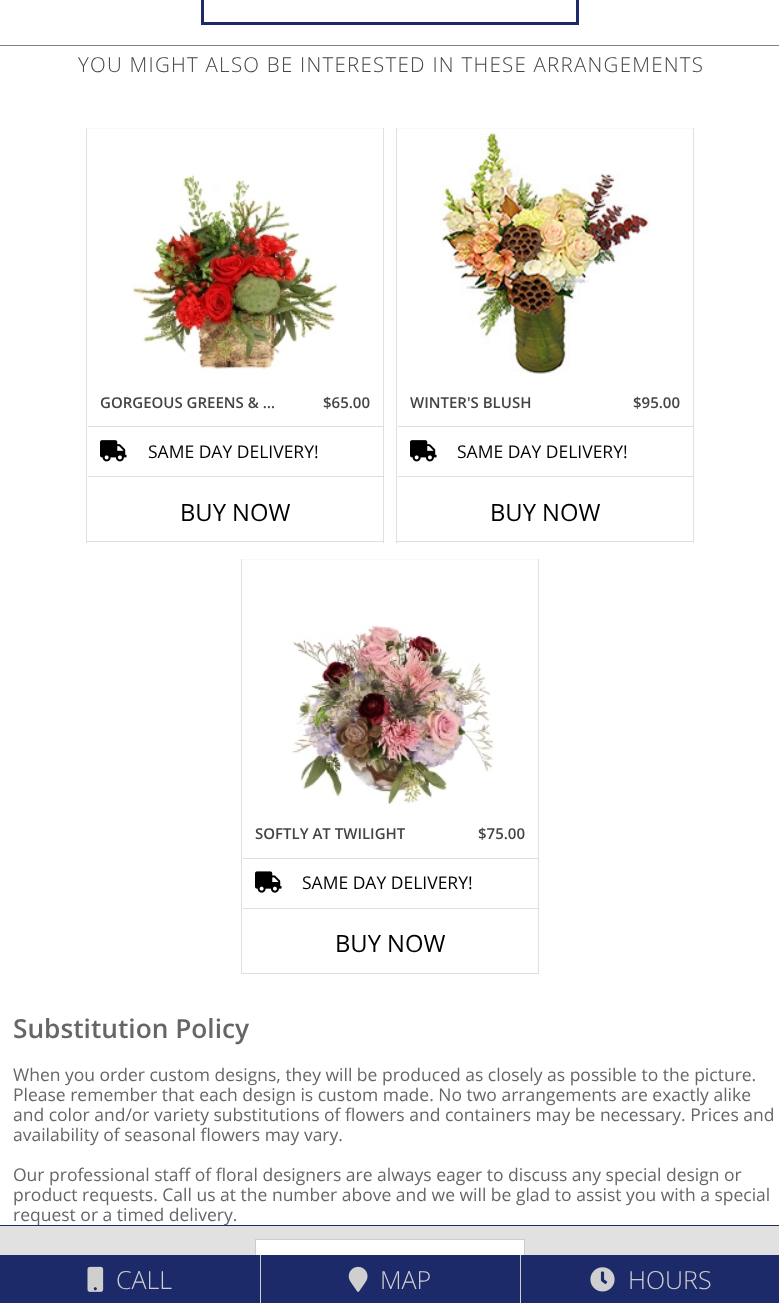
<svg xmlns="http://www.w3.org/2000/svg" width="779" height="1303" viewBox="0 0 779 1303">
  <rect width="100%" height="100%" fill="rgb(255,255,255)"/>
  <rect x="202.5" y="-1.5" width="375" height="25" fill="none" stroke="rgb(28,42,106)" stroke-width="3"/>
  <rect x="0" y="45" width="779" height="1" fill="rgb(128,128,128)"/>
  <text x="78" y="72" font-family="Open Sans" font-size="20.5" font-weight="300" letter-spacing="1.25" fill="rgb(68,68,68)">YOU MIGHT ALSO BE INTERESTED IN THESE ARRANGEMENTS</text>
  <rect x="86" y="128" width="298" height="1" fill="rgb(249,249,249)"/>
  <rect x="383" y="128" width="1" height="415" fill="rgb(226,222,221)"/>
  <rect x="86" y="541" width="298" height="1" fill="rgb(226,222,221)"/>
  <rect x="86" y="128" width="1" height="415" fill="rgb(226,222,221)"/>
  <image x="131" y="174" width="207" height="196" href="pic1.png"/>
  <g font-family="Open Sans" font-size="15" font-weight="600" fill="rgb(68,68,68)">
    <text x="100" y="408">GORGEOUS GREENS &amp; …</text>
    <text x="323" y="408">$65.00</text>
  </g>
  <rect x="88" y="426" width="295" height="1" fill="rgb(226,222,221)"/>
  <image x="100" y="440" width="27" height="22" href="pic2.png"/>
  <text x="148" y="458" font-family="Open Sans" font-size="17.5" fill="rgb(0,0,0)">SAME DAY DELIVERY!</text>
  <rect x="88" y="476" width="295" height="1" fill="rgb(226,222,221)"/>
  <text x="180" y="521" font-family="Open Sans" font-size="23.75" fill="rgb(0,0,0)">BUY NOW</text>
  <rect x="396" y="128" width="298" height="1" fill="rgb(249,249,249)"/>
  <rect x="693" y="128" width="1" height="415" fill="rgb(226,222,221)"/>
  <rect x="396" y="541" width="298" height="1" fill="rgb(226,222,221)"/>
  <rect x="396" y="128" width="1" height="415" fill="rgb(226,222,221)"/>
  <image x="440" y="133" width="209" height="241" href="pic3.png"/>
  <g font-family="Open Sans" font-size="15" font-weight="600" fill="rgb(68,68,68)">
    <text x="410" y="408">WINTER'S BLUSH</text>
    <text x="633" y="408">$95.00</text>
  </g>
  <rect x="398" y="426" width="295" height="1" fill="rgb(226,222,221)"/>
  <image x="410" y="440" width="27" height="22" href="pic2.png"/>
  <text x="457" y="458" font-family="Open Sans" font-size="17.5" fill="rgb(0,0,0)">SAME DAY DELIVERY!</text>
  <rect x="398" y="476" width="295" height="1" fill="rgb(226,222,221)"/>
  <text x="490" y="521" font-family="Open Sans" font-size="23.75" fill="rgb(0,0,0)">BUY NOW</text>
  <rect x="241" y="559" width="298" height="1" fill="rgb(249,249,249)"/>
  <rect x="538" y="559" width="1" height="415" fill="rgb(226,222,221)"/>
  <rect x="241" y="973" width="298" height="1" fill="rgb(226,222,221)"/>
  <rect x="241" y="559" width="1" height="415" fill="rgb(226,222,221)"/>
  <image x="292" y="625" width="202" height="180" href="pic4.png"/>
  <g font-family="Open Sans" font-size="15" font-weight="600" fill="rgb(68,68,68)">
    <text x="255" y="839">SOFTLY AT TWILIGHT</text>
    <text x="478" y="839">$75.00</text>
  </g>
  <rect x="243" y="858" width="295" height="1" fill="rgb(226,222,221)"/>
  <image x="255" y="871" width="27" height="22" href="pic5.png"/>
  <text x="302" y="889" font-family="Open Sans" font-size="17.5" fill="rgb(0,0,0)">SAME DAY DELIVERY!</text>
  <rect x="243" y="908" width="295" height="1" fill="rgb(226,222,221)"/>
  <text x="335" y="952" font-family="Open Sans" font-size="23.75" fill="rgb(0,0,0)">BUY NOW</text>
  <text x="13" y="1038" font-family="Open Sans" font-size="26.25" font-weight="600" fill="rgb(102,102,102)">Substitution Policy</text>
  <g font-family="Open Sans" font-size="17.5" fill="rgb(102,102,102)">
    <text>
      <tspan x="13" y="1081">When you order custom designs, they will be produced as closely as possible to the picture.</tspan>
      <tspan x="13" y="1101">Please remember that each design is custom made. No two arrangements are exactly alike</tspan>
      <tspan x="13" y="1121">and color and/or variety substitutions of flowers and containers may be necessary. Prices and</tspan>
      <tspan x="13" y="1141">availability of seasonal flowers may vary.</tspan>
    </text>
    <text>
      <tspan x="13" y="1181">Our professional staff of floral designers are always eager to discuss any special design or</tspan>
      <tspan x="13" y="1201">product requests. Call us at the number above and we will be glad to assist you with a special</tspan>
    </text>
  </g>
  <rect x="0" y="1225" width="779" height="1" fill="rgb(28,42,106)"/>
  <text x="13" y="1221" font-family="Open Sans" font-size="17.5" fill="rgb(102,102,102)">request or a timed delivery.</text>
  <rect x="0" y="1226" width="779" height="29" fill="rgb(225,225,225)"/>
  <rect x="256" y="1240" width="268" height="15" fill="rgb(255,255,255)"/>
  <rect x="255.5" y="1239.5" width="269" height="55" fill="none" stroke="rgb(204,204,204)"/>
  <rect x="0" y="1255" width="260" height="48" fill="rgb(28,42,106)"/>
  <image x="87" y="1266" width="17" height="26" href="pic6.png"/>
  <text x="116" y="1289" font-family="Open Sans" font-size="25" font-weight="300" fill="rgb(207,207,207)">CALL</text>
  <rect x="261" y="1255" width="259" height="48" fill="rgb(28,42,106)"/>
  <rect x="260" y="1255" width="1" height="48" fill="rgb(207,207,207)"/>
  <image x="348" y="1266" width="20" height="26" href="pic7.png"/>
  <text x="380" y="1289" font-family="Open Sans" font-size="25" font-weight="300" fill="rgb(207,207,207)">MAP</text>
  <rect x="521" y="1255" width="258" height="48" fill="rgb(28,42,106)"/>
  <rect x="520" y="1255" width="1" height="48" fill="rgb(207,207,207)"/>
  <image x="590" y="1267" width="25" height="25" href="pic8.png"/>
  <text x="628" y="1289" font-family="Open Sans" font-size="25" font-weight="300" fill="rgb(207,207,207)">HOURS</text>
</svg>
